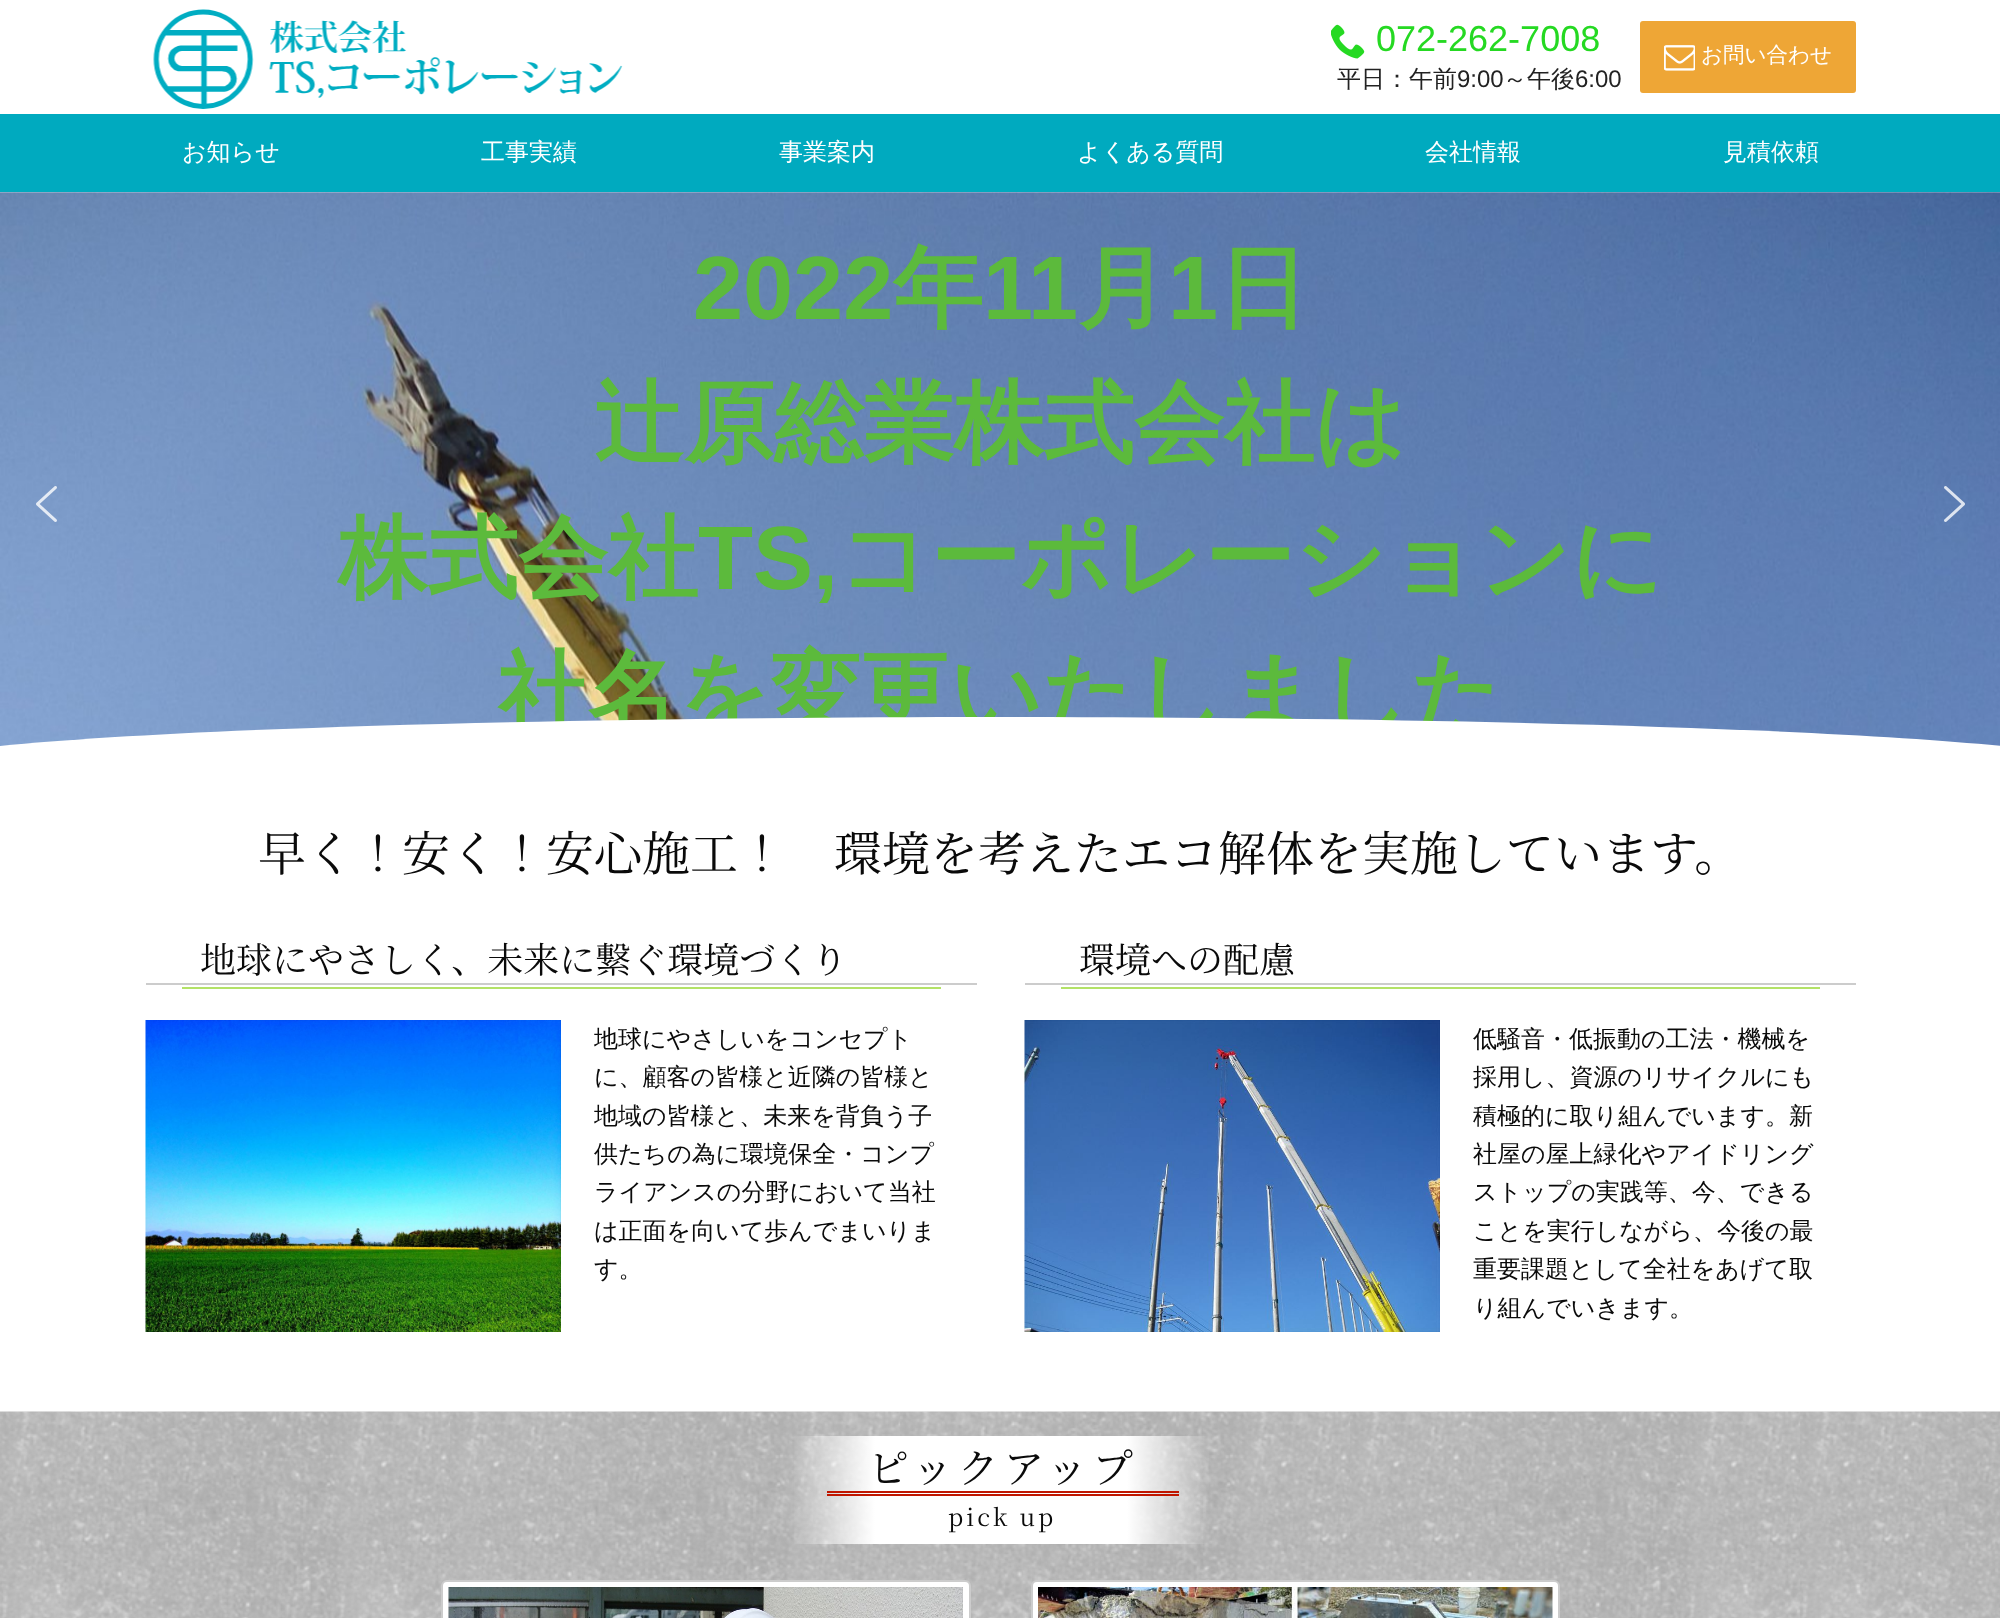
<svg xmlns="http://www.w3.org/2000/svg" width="2000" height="1618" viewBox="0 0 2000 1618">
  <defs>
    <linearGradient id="g1" gradientUnits="userSpaceOnUse" x1="791" y1="1490" x2="1211" y2="1490"><stop offset="0" stop-color="rgb(255,255,255)" stop-opacity="0"/><stop offset="0.2" stop-color="rgb(255,255,255)"/><stop offset="0.8" stop-color="rgb(255,255,255)"/><stop offset="1" stop-color="rgb(255,255,255)" stop-opacity="0"/></linearGradient>
  </defs>
  <rect width="100%" height="100%" fill="rgb(255,255,255)"/>
  <image x="153" y="9" width="470" height="100" href="pic1.png"/>
  <image x="1331" y="24" width="34" height="35" href="pic2.png"/>
  <text x="1376" y="51" font-family="Liberation Sans" font-size="36" fill="rgb(37,217,34)">072-262-7008</text>
  <text x="1337" y="87" font-family="WenQuanYi Zen Hei" font-size="24" font-weight="500" fill="rgb(34,34,34)">平日：午前</text>
  <text x="1457" y="87" font-family="Liberation Sans" font-size="24" fill="rgb(34,34,34)">9:00</text>
  <text x="1503" y="87" font-family="WenQuanYi Zen Hei" font-size="24" font-weight="500" fill="rgb(34,34,34)">～午後</text>
  <text x="1575" y="87" font-family="Liberation Sans" font-size="24" fill="rgb(34,34,34)">6:00</text>
  <rect x="1640" y="21" width="216" height="72" rx="3" fill="rgb(238,166,54)"/>
  <image x="1664" y="45" width="31" height="26" href="pic3.png"/>
  <text x="1701" y="62" font-family="WenQuanYi Zen Hei" font-size="21.5" font-weight="500" fill="rgb(255,255,255)">お問い合わせ</text>
  <rect x="0" y="114" width="2000" height="78" fill="rgb(0,170,191)"/>
  <g font-family="WenQuanYi Zen Hei" font-size="24" font-weight="500" fill="rgb(255,255,255)">
    <text x="182" y="160">お知らせ</text>
    <text x="481" y="160">工事実績</text>
    <text x="779" y="160">事業案内</text>
    <text x="1077" y="160">よくある質問</text>
    <text x="1425" y="160">会社情報</text>
    <text x="1723" y="160">見積依頼</text>
  </g>
  <image x="0" y="192" width="2000" height="554" href="pic5.png"/>
  <image x="36" y="486" width="21" height="36" href="pic4.png"/>
  <text x="693" y="319" font-family="Liberation Sans" font-size="90" font-weight="bold" fill="rgb(92,186,60)">2022</text>
  <text x="893" y="319" font-family="WenQuanYi Zen Hei" font-size="90" font-weight="bold" fill="rgb(92,186,60)">年</text>
  <text x="983" y="319" font-family="Liberation Sans" font-size="90" font-weight="bold" fill="rgb(92,186,60)">11</text>
  <text x="1078" y="319" font-family="WenQuanYi Zen Hei" font-size="90" font-weight="bold" fill="rgb(92,186,60)">月</text>
  <text x="1168" y="319" font-family="Liberation Sans" font-size="90" font-weight="bold" fill="rgb(92,186,60)">1</text>
  <g font-family="WenQuanYi Zen Hei" font-size="90" font-weight="bold" fill="rgb(92,186,60)">
    <text x="1218" y="319">日</text>
    <text x="594" y="454">辻原総業株式会社は</text>
    <text x="338" y="589">株式会社</text>
  </g>
  <text x="698" y="589" font-family="Liberation Sans" font-size="90" font-weight="bold" fill="rgb(92,186,60)">TS,</text>
  <g font-family="WenQuanYi Zen Hei" font-size="90" font-weight="bold" fill="rgb(92,186,60)">
    <text x="838" y="589">コーポレーションに</text>
    <text x="498" y="724">社名を変更いたしました</text>
  </g>
  <image x="1944" y="486" width="21" height="36" href="pic6.png"/>
  <path d="M1000 717C1609 717 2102 739 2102 767V818H-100V767C-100 739 392 717 1000 717Z" fill="rgb(255,255,255)"/>
  <text x="258" y="871" font-family="Noto Serif JP" font-size="48" fill="rgb(10,10,10)">早く！安く！安心施工！　環境を考えたエコ解体を実施しています。</text>
  <rect x="146" y="983" width="831" height="2" fill="rgb(204,204,204)"/>
  <text x="200" y="973" font-family="Noto Serif JP" font-size="36" fill="rgb(10,10,10)">地球にやさしく、未来に繋ぐ環境づくり</text>
  <rect x="182" y="987" width="759" height="2" fill="rgb(179,226,103)"/>
  <image x="145" y="1020" width="416" height="312" href="pic7.png"/>
  <g font-family="WenQuanYi Zen Hei" font-size="24" font-weight="500" fill="rgb(10,10,10)">
    <text>
      <tspan x="594" y="1047">地球にやさしいをコンセプト</tspan>
      <tspan x="594" y="1085">に、顧客の皆様と近隣の皆様と</tspan>
      <tspan x="594" y="1124">地域の皆様と、未来を背負う子</tspan>
      <tspan x="594" y="1162">供たちの為に環境保全・コンプ</tspan>
      <tspan x="594" y="1200">ライアンスの分野において当社</tspan>
      <tspan x="594" y="1239">は正面を向いて歩んでまいりま</tspan>
      <tspan x="594" y="1277">す。</tspan>
    </text>
  </g>
  <rect x="1025" y="983" width="831" height="2" fill="rgb(204,204,204)"/>
  <text x="1079" y="973" font-family="Noto Serif JP" font-size="36" fill="rgb(10,10,10)">環境への配慮</text>
  <rect x="1061" y="987" width="759" height="2" fill="rgb(179,226,103)"/>
  <image x="1024" y="1020" width="416" height="312" href="pic8.png"/>
  <g font-family="WenQuanYi Zen Hei" font-size="24" font-weight="500" fill="rgb(10,10,10)">
    <text>
      <tspan x="1473" y="1047">低騒音・低振動の工法・機械を</tspan>
      <tspan x="1473" y="1085">採用し、資源のリサイクルにも</tspan>
      <tspan x="1473" y="1124">積極的に取り組んでいます。新</tspan>
      <tspan x="1473" y="1162">社屋の屋上緑化やアイドリング</tspan>
      <tspan x="1473" y="1200">ストップの実践等、今、できる</tspan>
      <tspan x="1473" y="1239">ことを実行しながら、今後の最</tspan>
      <tspan x="1473" y="1277">重要課題として全社をあげて取</tspan>
      <tspan x="1473" y="1316">り組んでいきます。</tspan>
    </text>
  </g>
  <image x="0" y="1411" width="2000" height="207" href="pic9.png"/>
  <rect x="794" y="1436" width="415" height="108" fill="url(#g1)"/>
  <rect x="827" y="1491" width="352" height="2" fill="rgb(191,22,0)"/>
  <rect x="827" y="1494" width="352" height="2" fill="rgb(191,22,0)"/>
  <text x="868" y="1483" font-family="Noto Serif JP" font-size="40.75" letter-spacing="5" fill="rgb(10,10,10)">ピックアップ</text>
  <text x="948" y="1526" font-family="Noto Serif JP" font-size="24" letter-spacing="3" fill="rgb(10,10,10)">pick up</text>
  <rect x="447" y="1610" width="518" height="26" fill="rgba(102,102,102,0.6)" filter="blur(6px)"/>
  <rect x="442" y="1581" width="528" height="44" rx="5" fill="rgb(255,255,255)" stroke="rgb(204,204,204)" stroke-width="2"/>
  <image x="448" y="1587" width="515" height="31" href="pic10.png"/>
  <rect x="1037" y="1610" width="517" height="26" fill="rgba(102,102,102,0.6)" filter="blur(6px)"/>
  <rect x="1032" y="1581" width="527" height="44" rx="5" fill="rgb(255,255,255)" stroke="rgb(204,204,204)" stroke-width="2"/>
  <image x="1038" y="1587" width="515" height="31" href="pic11.png"/>
</svg>
